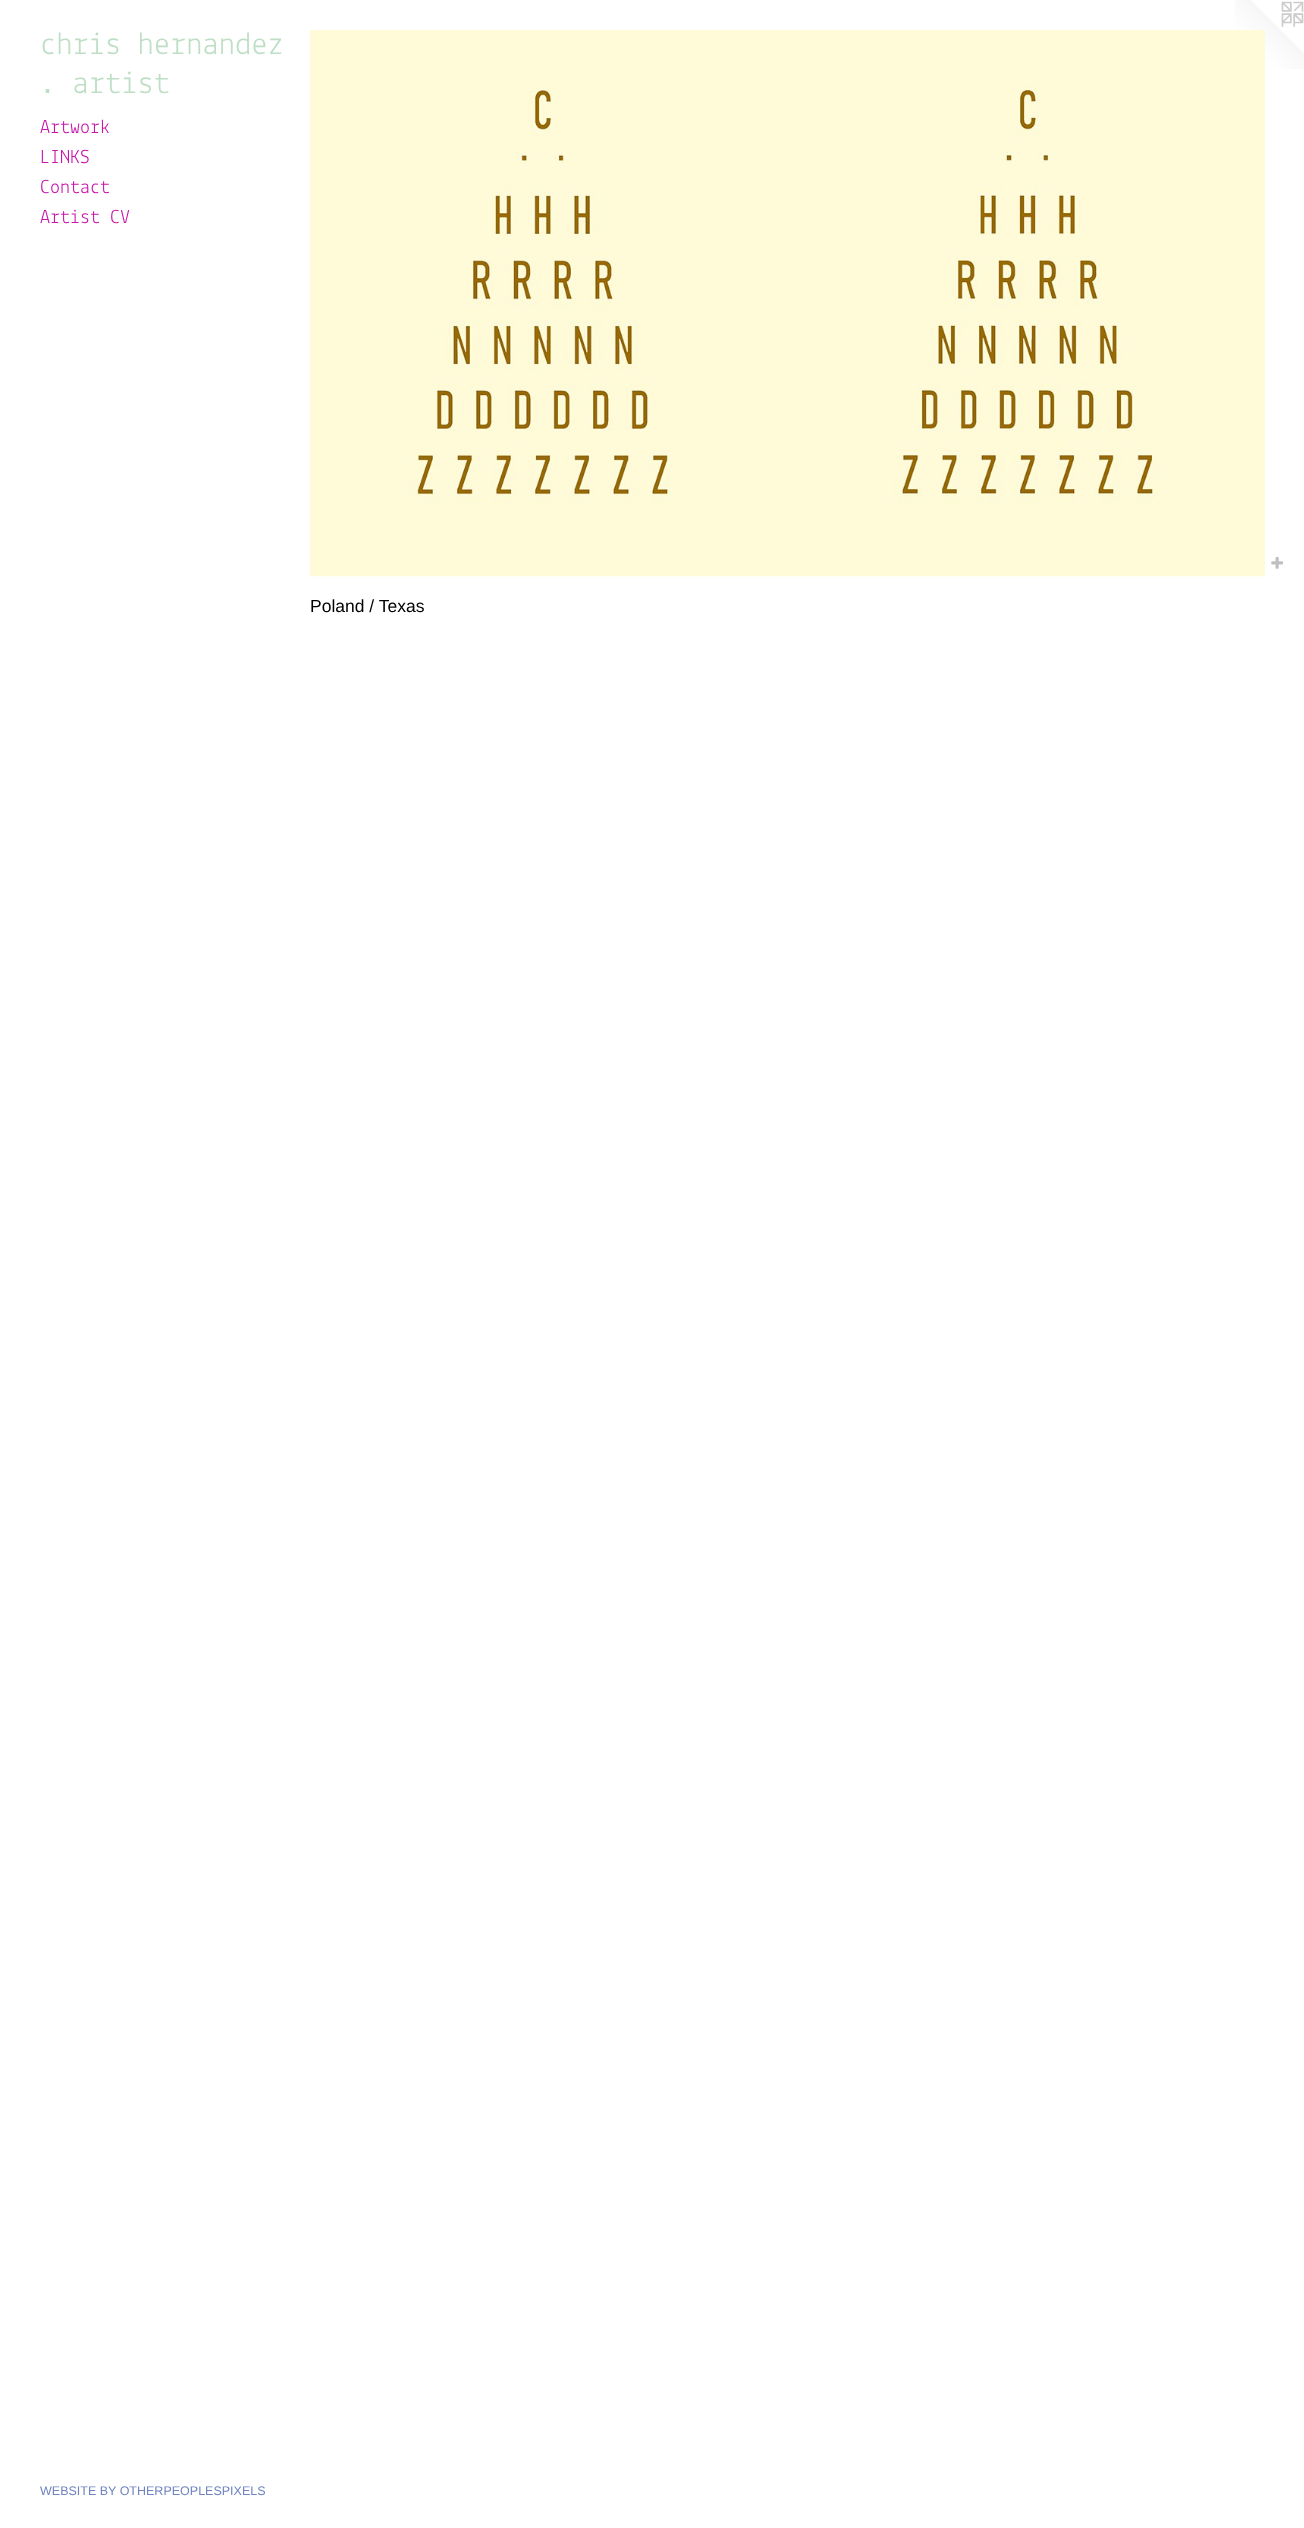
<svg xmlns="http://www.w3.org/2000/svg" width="1304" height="2528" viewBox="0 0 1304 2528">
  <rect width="100%" height="100%" fill="rgb(255,255,255)"/>
  <g font-family="Lekton" font-size="32.5" fill="rgb(190,223,197)">
    <text>
      <tspan x="40" y="54">chris hernandez</tspan>
      <tspan x="40" y="93">. artist</tspan>
    </text>
  </g>
  <g font-family="Lekton" font-size="20" fill="rgb(200,20,169)">
    <text>
      <tspan x="40" y="133">Artwork</tspan>
      <tspan x="40" y="163">LINKS</tspan>
      <tspan x="40" y="193">Contact</tspan>
      <tspan x="40" y="223">Artist CV</tspan>
    </text>
  </g>
  <text x="40" y="2495" font-family="Liberation Sans" font-size="12.5" fill="rgb(112,132,192)">WEBSITE BY OTHERPEOPLESPIXELS</text>
  <image x="1235" y="0" width="69" height="69" href="pic1.png"/>
  <image x="310" y="30" width="955" height="547" href="pic2.png"/>
  <image x="1271" y="557" width="12" height="12" href="pic3.png"/>
  <text x="310" y="612" font-family="Liberation Sans" font-size="17.5" fill="rgb(0,0,0)">Poland / Texas</text>
</svg>
